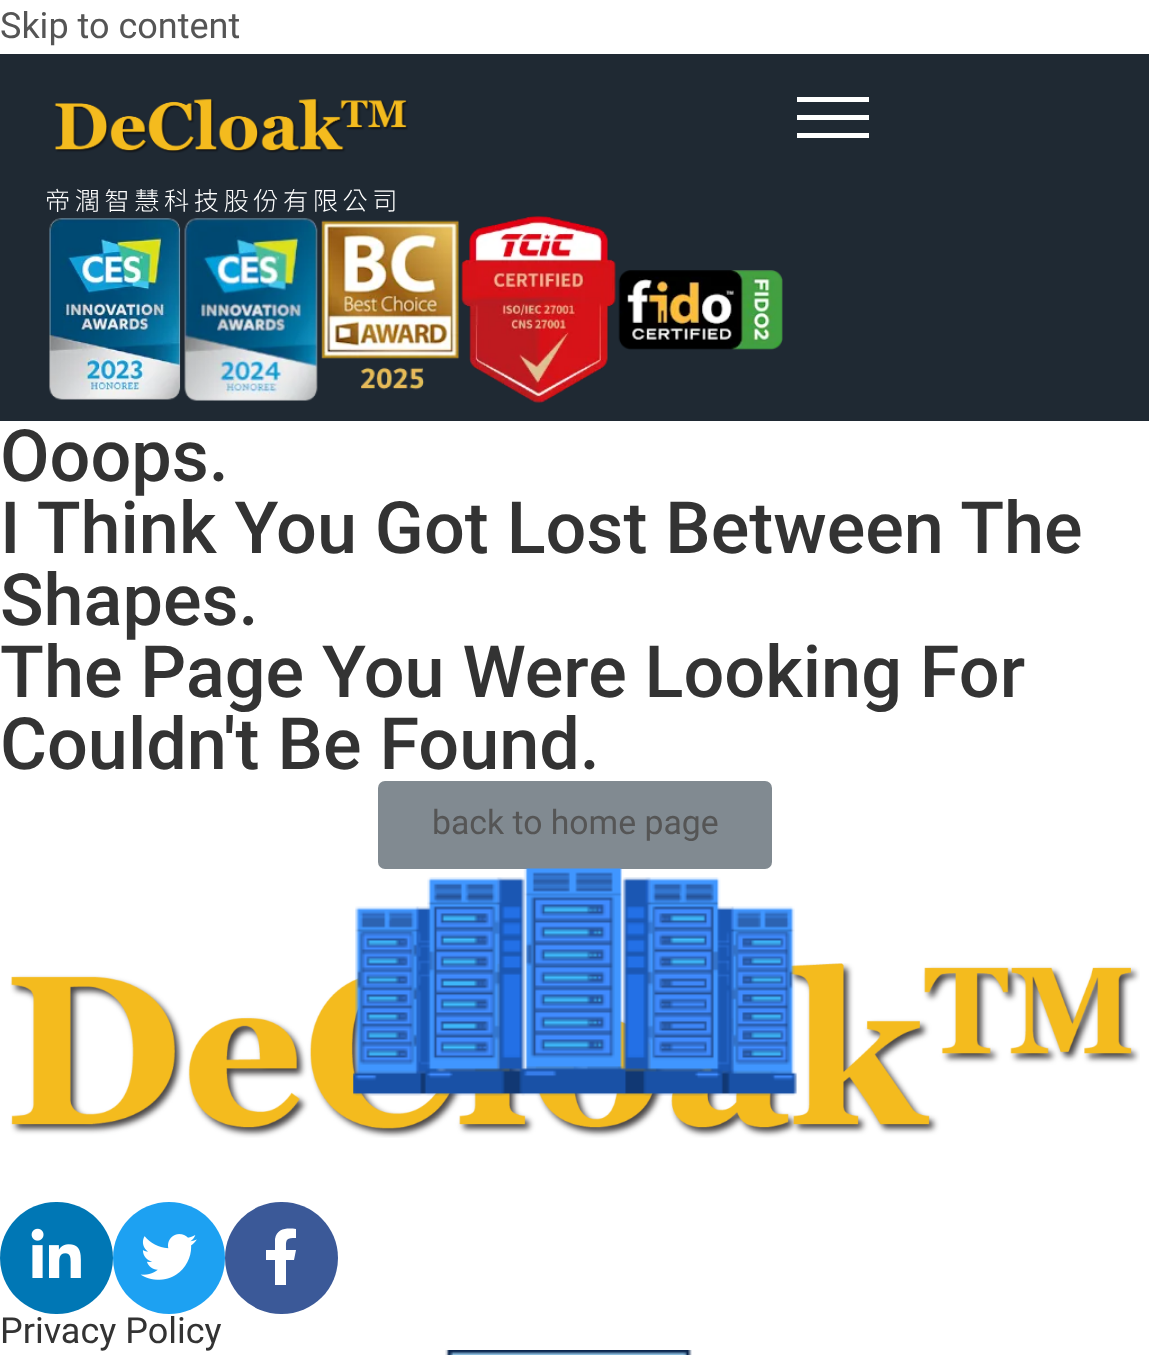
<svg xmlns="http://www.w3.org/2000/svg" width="1149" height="1355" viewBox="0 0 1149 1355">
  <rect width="100%" height="100%" fill="rgb(255,255,255)"/>
  <text x="0" y="38" font-family="Roboto" font-size="36" fill="rgb(85,85,85)">Skip to content</text>
  <rect x="0" y="54" width="1149" height="367" fill="rgb(31,41,51)"/>
  <rect x="797" y="97" width="72" height="5" fill="rgb(255,255,255)"/>
  <rect x="797" y="115" width="72" height="5" fill="rgb(255,255,255)"/>
  <rect x="797" y="133" width="72" height="5" fill="rgb(255,255,255)"/>
  <image x="54" y="98" width="354" height="55" href="pic1.png"/>
  <text x="45" y="210" font-family="Noto Sans TC" font-size="25.25" font-weight="300" letter-spacing="4.5" fill="rgb(255,255,255)">帝濶智慧科技股份有限公司</text>
  <image x="49" y="216" width="734" height="187" href="pic2.png"/>
  <g font-family="Roboto" font-size="72" font-weight="500" fill="rgb(51,51,51)">
    <text>
      <tspan x="0" y="481">Ooops.</tspan>
      <tspan x="0" y="553">I Think You Got Lost Between The</tspan>
      <tspan x="0" y="625">Shapes.</tspan>
      <tspan x="0" y="697">The Page You Were Looking For</tspan>
      <tspan x="0" y="769">Couldn't Be Found.</tspan>
    </text>
  </g>
  <rect x="378" y="781" width="394" height="88" rx="7" fill="rgb(129,138,145)"/>
  <text x="432" y="834" font-family="Roboto" font-size="33.75" fill="rgb(85,85,85)">back to home page</text>
  <image x="10" y="963" width="1130" height="175" href="pic4.png"/>
  <image x="353" y="868" width="444" height="228" href="pic3.png"/>
  <rect x="0" y="1202" width="113" height="112" rx="56" fill="rgb(0,119,181)"/>
  <image x="31" y="1228" width="50" height="50" href="pic5.png"/>
  <circle cx="169" cy="1258" r="56" fill="rgb(29,161,242)"/>
  <image x="140" y="1234" width="57" height="46" href="pic6.png"/>
  <rect x="225" y="1202" width="113" height="112" rx="56" fill="rgb(59,89,152)"/>
  <path d="M294 1260H286V1285H275V1260H266V1250H275V1239C277 1228 287 1228 296 1229V1238C285 1238 286 1240 286 1250H296Z" fill="rgb(255,255,255)"/>
  <text x="0" y="1343" font-family="Roboto" font-size="36" fill="rgb(51,51,51)">Privacy Policy</text>
  <image x="445" y="1350" width="247" height="5" href="pic7.png"/>
</svg>
